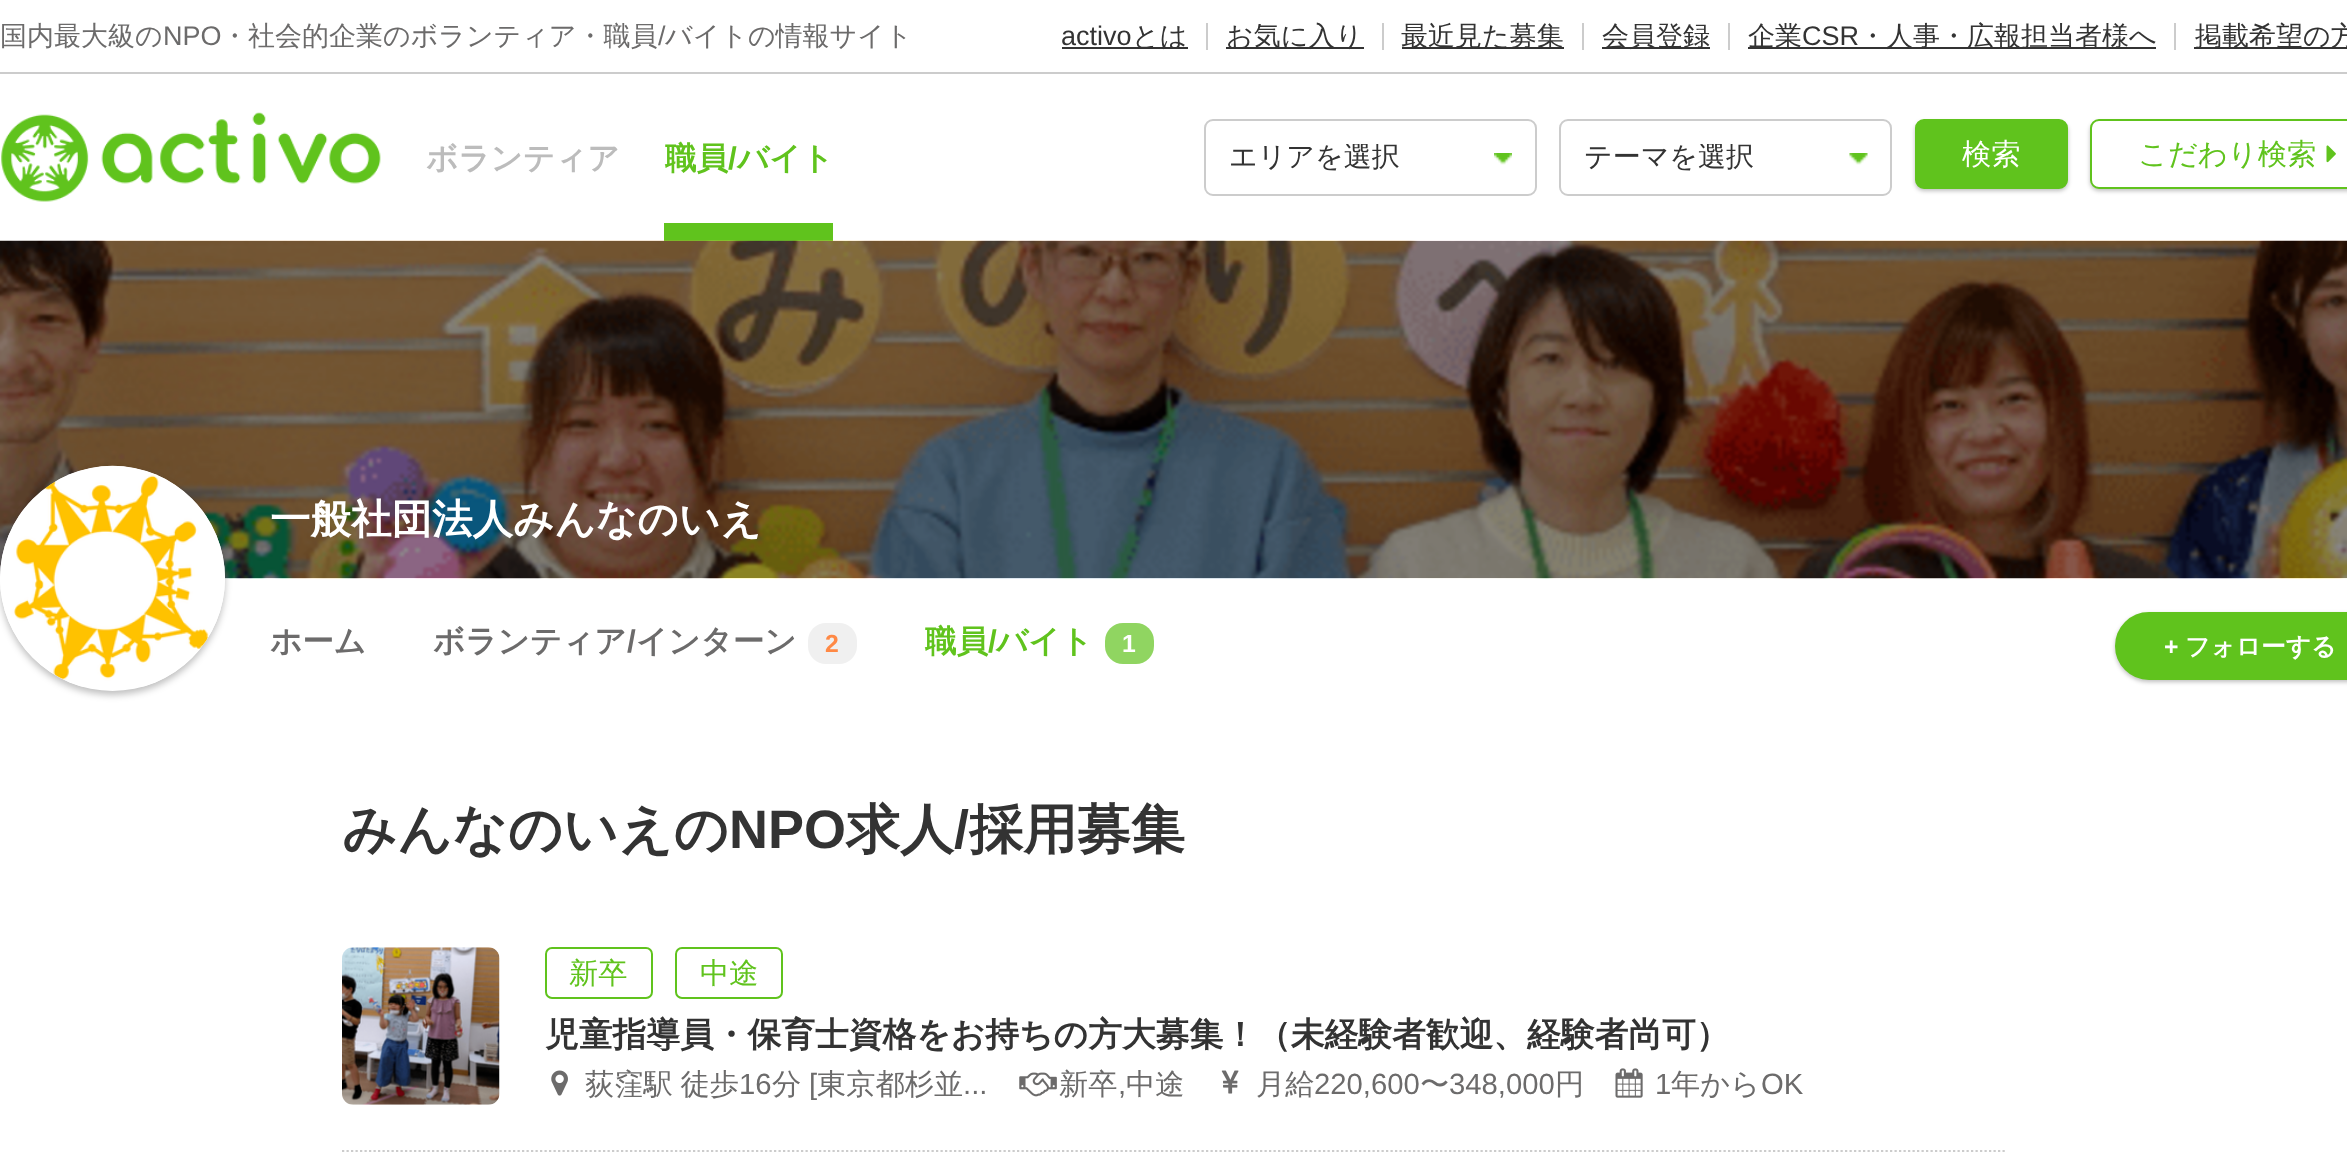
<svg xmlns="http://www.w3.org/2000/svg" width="2347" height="1152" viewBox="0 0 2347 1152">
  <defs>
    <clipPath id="clip1"><rect x="1229" y="144" width="249" height="27"/></clipPath>
    <clipPath id="clip2"><rect x="1584" y="144" width="250" height="27"/></clipPath>
  </defs>
  <rect width="100%" height="100%" fill="rgb(255,255,255)"/>
  <rect x="0" y="72" width="2347" height="2" fill="rgb(204,204,204)"/>
  <text x="0" y="45" font-family="WenQuanYi Zen Hei" font-size="27" font-weight="500" fill="rgb(108,107,107)">国内最大級の</text>
  <text x="163" y="45" font-family="Liberation Sans" font-size="27" fill="rgb(108,107,107)">NPO</text>
  <text x="221" y="45" font-family="WenQuanYi Zen Hei" font-size="27" font-weight="500" fill="rgb(108,107,107)">・社会的企業のボランティア・職員</text>
  <text x="658" y="45" font-family="Liberation Sans" font-size="27" fill="rgb(108,107,107)">/</text>
  <text x="665" y="45" font-family="WenQuanYi Zen Hei" font-size="27" font-weight="500" fill="rgb(108,107,107)">バイトの情報サイト</text>
  <rect x="1206" y="23" width="2" height="27" fill="rgb(204,204,204)"/>
  <text x="1061" y="45" font-family="Liberation Sans" font-size="27" fill="rgb(51,51,51)">activo</text>
  <rect x="1062" y="47" width="126" height="2" fill="rgb(51,51,51)"/>
  <text x="1132" y="45" font-family="WenQuanYi Zen Hei" font-size="27" font-weight="500" fill="rgb(51,51,51)">とは</text>
  <rect x="1382" y="23" width="2" height="27" fill="rgb(204,204,204)"/>
  <rect x="1226" y="47" width="138" height="2" fill="rgb(51,51,51)"/>
  <text x="1226" y="45" font-family="WenQuanYi Zen Hei" font-size="27" font-weight="500" fill="rgb(51,51,51)">お気に入り</text>
  <rect x="1582" y="23" width="2" height="27" fill="rgb(204,204,204)"/>
  <rect x="1402" y="47" width="162" height="2" fill="rgb(51,51,51)"/>
  <text x="1401" y="45" font-family="WenQuanYi Zen Hei" font-size="27" font-weight="500" fill="rgb(51,51,51)">最近見た募集</text>
  <rect x="1728" y="23" width="2" height="27" fill="rgb(204,204,204)"/>
  <rect x="1602" y="47" width="108" height="2" fill="rgb(51,51,51)"/>
  <text x="1602" y="45" font-family="WenQuanYi Zen Hei" font-size="27" font-weight="500" fill="rgb(51,51,51)">会員登録</text>
  <rect x="2174" y="23" width="2" height="27" fill="rgb(204,204,204)"/>
  <rect x="1748" y="47" width="408" height="2" fill="rgb(51,51,51)"/>
  <text x="1748" y="45" font-family="WenQuanYi Zen Hei" font-size="27" font-weight="500" fill="rgb(51,51,51)">企業</text>
  <text x="1802" y="45" font-family="Liberation Sans" font-size="27" fill="rgb(51,51,51)">CSR</text>
  <text x="1859" y="45" font-family="WenQuanYi Zen Hei" font-size="27" font-weight="500" fill="rgb(51,51,51)">・人事・広報担当者様へ</text>
  <rect x="2194" y="47" width="153" height="2" fill="rgb(51,51,51)"/>
  <text x="2195" y="45" font-family="WenQuanYi Zen Hei" font-size="27" font-weight="500" fill="rgb(51,51,51)">掲載希望の方</text>
  <image x="1" y="112" width="380" height="90" href="pic1.png"/>
  <text x="426" y="169" font-family="WenQuanYi Zen Hei" font-size="31.5" font-weight="bold" fill="rgb(188,188,188)">ボランティア</text>
  <rect x="664" y="223" width="169" height="18" fill="rgb(96,195,29)"/>
  <text x="665" y="169" font-family="WenQuanYi Zen Hei" font-size="31.5" font-weight="bold" fill="rgb(96,195,29)">職員</text>
  <text x="728" y="169" font-family="Liberation Sans" font-size="31.5" font-weight="bold" fill="rgb(96,195,29)">/</text>
  <text x="737" y="169" font-family="WenQuanYi Zen Hei" font-size="31.5" font-weight="bold" fill="rgb(96,195,29)">バイト</text>
  <image x="1494" y="153" width="18" height="12" href="pic2.png"/>
  <rect x="1205" y="120" width="331" height="75" rx="8" fill="none" stroke="rgb(204,204,204)" stroke-width="2"/>
  <g clip-path="url(#clip1)">
    <text x="1229" y="166" font-family="WenQuanYi Zen Hei" font-size="28" font-weight="500" fill="rgb(51,51,51)">エリアを選択</text>
  </g>
  <image x="1849" y="153" width="19" height="12" href="pic3.png"/>
  <rect x="1560" y="120" width="331" height="75" rx="8" fill="none" stroke="rgb(204,204,204)" stroke-width="2"/>
  <g clip-path="url(#clip2)">
    <text x="1584" y="166" font-family="WenQuanYi Zen Hei" font-size="28" font-weight="500" fill="rgb(51,51,51)">テーマを選択</text>
  </g>
  <rect x="1915" y="122" width="153" height="69" rx="9" fill="rgba(0,0,0,0.25)" filter="blur(2px)"/>
  <rect x="1916" y="120" width="151" height="68" rx="8" fill="rgb(96,195,29)" stroke="rgb(96,195,29)" stroke-width="2"/>
  <text x="1962" y="164" font-family="WenQuanYi Zen Hei" font-size="29.25" font-weight="500" fill="rgb(255,255,255)">検索</text>
  <rect x="2090" y="122" width="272" height="69" rx="9" fill="rgba(0,0,0,0.25)" filter="blur(2px)"/>
  <rect x="2091" y="120" width="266" height="68" rx="8" fill="rgb(255,255,255)" stroke="rgb(96,195,29)" stroke-width="2"/>
  <text x="2138" y="164" font-family="WenQuanYi Zen Hei" font-size="29.25" font-weight="500" fill="rgb(96,195,29)">こだわり検索</text>
  <image x="2326" y="145" width="10" height="18" href="pic4.png"/>
  <image x="0" y="240" width="2347" height="339" href="pic5.png"/>
  <rect x="0" y="470" width="225" height="225" rx="112.5" fill="rgba(0,0,0,0.25)" filter="blur(3.5px)"/>
  <circle cx="112.5" cy="578.5" r="112.5" fill="rgb(255,255,255)"/>
  <image x="0" y="465" width="225" height="222" href="pic6.png"/>
  <text x="270" y="533" font-family="WenQuanYi Zen Hei" font-size="40.5" font-weight="bold" fill="rgb(255,255,255)">一般社団法人みんなのいえ</text>
  <g font-family="WenQuanYi Zen Hei" font-size="31.5" font-weight="bold" fill="rgb(108,107,107)">
    <text x="270" y="652">ホーム</text>
    <text x="433" y="652">ボランティア</text>
  </g>
  <text x="627" y="652" font-family="Liberation Sans" font-size="31.5" font-weight="bold" fill="rgb(108,107,107)">/</text>
  <text x="636" y="652" font-family="WenQuanYi Zen Hei" font-size="31.5" font-weight="bold" fill="rgb(108,107,107)">インターン</text>
  <rect x="808" y="623" width="49" height="41" rx="18" fill="rgb(240,240,240)"/>
  <text x="825" y="652" font-family="Liberation Sans" font-size="24.75" font-weight="bold" fill="rgb(255,137,69)">2</text>
  <text x="925" y="652" font-family="WenQuanYi Zen Hei" font-size="31.5" font-weight="bold" fill="rgb(96,195,29)">職員</text>
  <text x="988" y="652" font-family="Liberation Sans" font-size="31.5" font-weight="bold" fill="rgb(96,195,29)">/</text>
  <text x="996" y="652" font-family="WenQuanYi Zen Hei" font-size="31.5" font-weight="bold" fill="rgb(96,195,29)">バイト</text>
  <rect x="1105" y="623" width="49" height="41" rx="18" fill="rgb(144,213,97)"/>
  <text x="1122" y="652" font-family="Liberation Sans" font-size="24.75" font-weight="bold" fill="rgb(255,255,255)">1</text>
  <rect x="2115" y="614" width="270" height="68" rx="34" fill="rgba(0,0,0,0.25)" filter="blur(2px)"/>
  <rect x="2116" y="613" width="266" height="66" rx="33" fill="rgb(96,195,29)" stroke="rgb(96,195,29)" stroke-width="2"/>
  <text x="2164" y="655" font-family="Liberation Sans" font-size="24.75" font-weight="bold" fill="rgb(255,255,255)">+</text>
  <text x="2185" y="655" font-family="WenQuanYi Zen Hei" font-size="24.75" font-weight="bold" fill="rgb(255,255,255)">フォローする</text>
  <text x="342" y="848" font-family="WenQuanYi Zen Hei" font-size="54" font-weight="bold" fill="rgb(51,51,51)">みんなのいえの</text>
  <text x="729" y="848" font-family="Liberation Sans" font-size="54" font-weight="bold" fill="rgb(51,51,51)">NPO</text>
  <text x="846" y="848" font-family="WenQuanYi Zen Hei" font-size="54" font-weight="bold" fill="rgb(51,51,51)">求人</text>
  <text x="954" y="848" font-family="Liberation Sans" font-size="54" font-weight="bold" fill="rgb(51,51,51)">/</text>
  <text x="969" y="848" font-family="WenQuanYi Zen Hei" font-size="54" font-weight="bold" fill="rgb(51,51,51)">採用募集</text>
  <path d="M342 1151H2007" fill="none" stroke="rgb(204,204,204)" stroke-width="2.2" stroke-dasharray="2.25 2.25"/>
  <image x="342" y="947" width="158" height="158" href="pic7.png"/>
  <rect x="546" y="948" width="106" height="50" rx="6" fill="none" stroke="rgb(96,195,29)" stroke-width="2"/>
  <text x="569" y="983" font-family="WenQuanYi Zen Hei" font-size="29.25" font-weight="500" fill="rgb(96,195,29)">新卒</text>
  <rect x="676" y="948" width="106" height="50" rx="6" fill="none" stroke="rgb(96,195,29)" stroke-width="2"/>
  <text x="700" y="983" font-family="WenQuanYi Zen Hei" font-size="29.25" font-weight="500" fill="rgb(96,195,29)">中途</text>
  <text x="545" y="1046" font-family="WenQuanYi Zen Hei" font-size="33.75" font-weight="bold" fill="rgb(51,51,51)">児童指導員・保育士資格をお持ちの方大募集！（未経験者歓迎、経験者尚可）</text>
  <image x="551" y="1070" width="17" height="26" href="pic8.png"/>
  <text x="585" y="1094" word-spacing="-1" font-family="WenQuanYi Zen Hei" font-size="29.25" font-weight="500" fill="rgb(108,107,107)">荻窪駅 徒歩</text>
  <text x="739" y="1094" font-family="Liberation Sans" font-size="29.25" fill="rgb(108,107,107)">16</text>
  <text x="772" y="1094" font-family="WenQuanYi Zen Hei" font-size="29.25" font-weight="500" fill="rgb(108,107,107)">分</text>
  <text x="809" y="1094" font-family="Liberation Sans" font-size="29.25" fill="rgb(108,107,107)">[</text>
  <text x="817" y="1094" font-family="WenQuanYi Zen Hei" font-size="29.25" font-weight="500" fill="rgb(108,107,107)">東京都杉並</text>
  <text x="963" y="1094" font-family="Liberation Sans" font-size="29.25" fill="rgb(108,107,107)">...</text>
  <image x="1019" y="1072" width="38" height="25" href="pic9.png"/>
  <text x="1059" y="1094" font-family="WenQuanYi Zen Hei" font-size="29.25" font-weight="500" fill="rgb(108,107,107)">新卒</text>
  <text x="1118" y="1094" font-family="Liberation Sans" font-size="29.25" fill="rgb(108,107,107)">,</text>
  <text x="1126" y="1094" font-family="WenQuanYi Zen Hei" font-size="29.25" font-weight="500" fill="rgb(108,107,107)">中途</text>
  <image x="1221" y="1070" width="18" height="24" href="pic10.png"/>
  <text x="1256" y="1094" font-family="WenQuanYi Zen Hei" font-size="29.25" font-weight="500" fill="rgb(108,107,107)">月給</text>
  <text x="1314" y="1094" font-family="Liberation Sans" font-size="29.25" fill="rgb(108,107,107)">220,600</text>
  <text x="1420" y="1094" font-family="WenQuanYi Zen Hei" font-size="29.25" font-weight="500" fill="rgb(108,107,107)">〜</text>
  <text x="1449" y="1094" font-family="Liberation Sans" font-size="29.25" fill="rgb(108,107,107)">348,000</text>
  <text x="1555" y="1094" font-family="WenQuanYi Zen Hei" font-size="29.25" font-weight="500" fill="rgb(108,107,107)">円</text>
  <image x="1615" y="1068" width="28" height="30" href="pic11.png"/>
  <text x="1655" y="1094" font-family="Liberation Sans" font-size="29.25" fill="rgb(108,107,107)">1</text>
  <text x="1671" y="1094" font-family="WenQuanYi Zen Hei" font-size="29.25" font-weight="500" fill="rgb(108,107,107)">年から</text>
  <text x="1761" y="1094" font-family="Liberation Sans" font-size="29.25" fill="rgb(108,107,107)">OK</text>
</svg>
